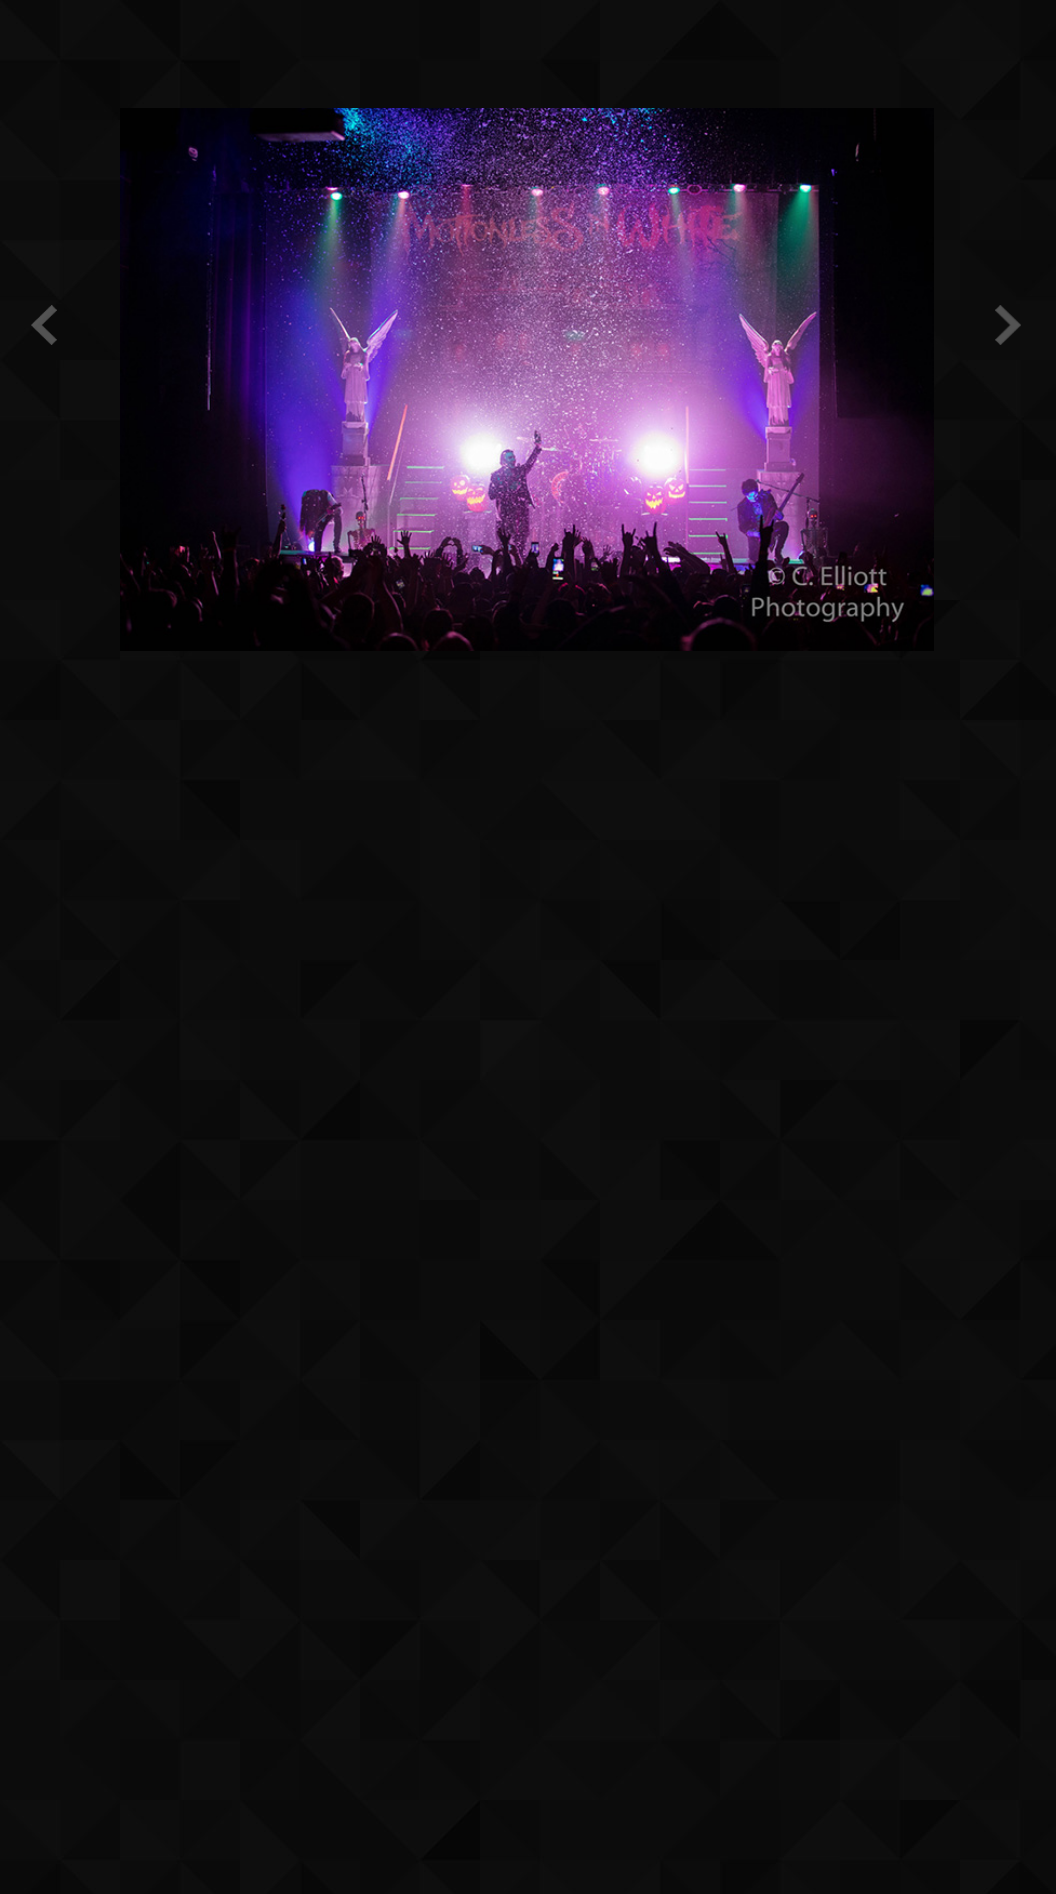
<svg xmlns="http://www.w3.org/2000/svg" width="1056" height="1894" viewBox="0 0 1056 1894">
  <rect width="100%" height="100%" fill="rgb(255,255,255)"/>
  <image x="0" y="0" width="1056" height="1894" href="pic1.png"/>
  <image x="120" y="108" width="814" height="543" href="pic2.png"/>
  <image x="31" y="305" width="26" height="40" href="pic3.png"/>
  <image x="995" y="305" width="26" height="40" href="pic4.png"/>
</svg>
